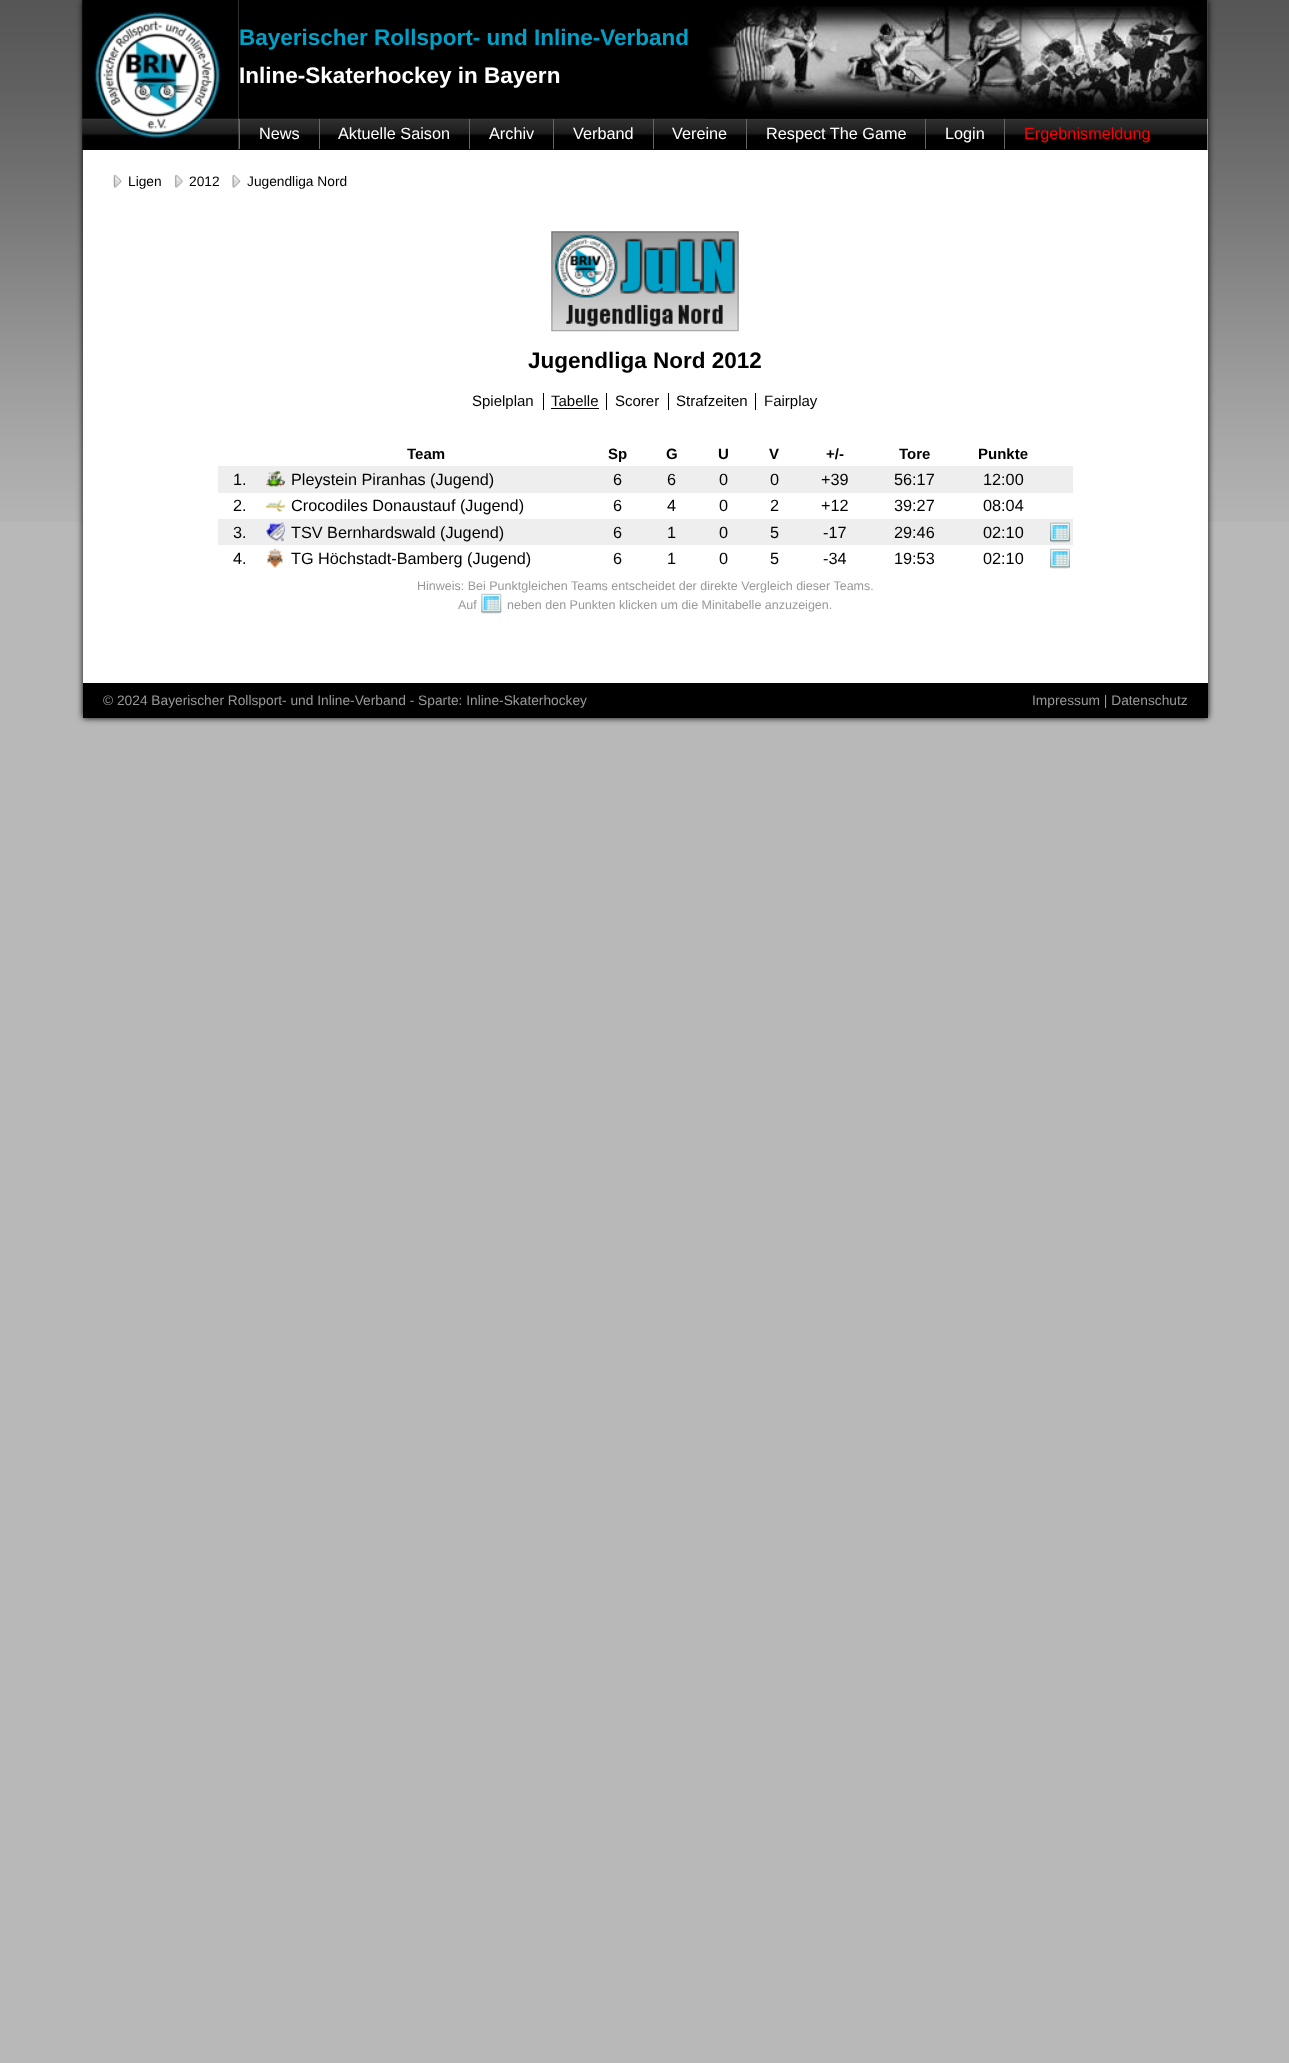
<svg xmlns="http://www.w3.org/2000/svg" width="1289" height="2063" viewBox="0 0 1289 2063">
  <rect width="100%" height="100%" fill="rgb(184,184,184)"/>
  <image x="0" y="0" width="1289" height="522" href="pic1.png"/>
  <rect x="83" y="0" width="1125" height="718" fill="rgb(0,0,0)" filter="blur(3px)"/>
  <rect x="83" y="0" width="1125" height="683" fill="rgb(255,255,255)"/>
  <image x="82" y="0" width="157" height="150" href="pic2.png"/>
  <image x="82" y="0" width="139" height="150" href="pic3.png"/>
  <image x="238" y="0" width="970" height="150" href="pic4.png"/>
  <text x="239" y="45" font-family="Liberation Sans" font-size="22.5" font-weight="bold" fill="rgb(1,160,199)">Bayerischer Rollsport- und Inline-Verband</text>
  <text x="239" y="83" font-family="Liberation Sans" font-size="22.5" font-weight="bold" fill="rgb(255,255,255)">Inline-Skaterhockey in Bayern</text>
  <image x="707" y="0" width="501" height="119" href="pic5.png"/>
  <rect x="239" y="119" width="1" height="30" fill="rgb(102,102,102)"/>
  <text x="259" y="139" font-family="Liberation Sans" font-size="16.25" fill="rgb(255,255,255)">News</text>
  <rect x="319" y="119" width="1" height="30" fill="rgb(102,102,102)"/>
  <text x="338" y="139" font-family="Liberation Sans" font-size="16.25" fill="rgb(255,255,255)">Aktuelle Saison</text>
  <rect x="469" y="119" width="1" height="30" fill="rgb(102,102,102)"/>
  <text x="489" y="139" font-family="Liberation Sans" font-size="16.25" fill="rgb(255,255,255)">Archiv</text>
  <rect x="553" y="119" width="1" height="30" fill="rgb(102,102,102)"/>
  <text x="573" y="139" font-family="Liberation Sans" font-size="16.25" fill="rgb(255,255,255)">Verband</text>
  <rect x="653" y="119" width="1" height="30" fill="rgb(102,102,102)"/>
  <text x="672" y="139" font-family="Liberation Sans" font-size="16.25" fill="rgb(255,255,255)">Vereine</text>
  <rect x="746" y="119" width="1" height="30" fill="rgb(102,102,102)"/>
  <text x="766" y="139" font-family="Liberation Sans" font-size="16.25" fill="rgb(255,255,255)">Respect The Game</text>
  <rect x="925" y="119" width="1" height="30" fill="rgb(102,102,102)"/>
  <text x="945" y="139" font-family="Liberation Sans" font-size="16.25" fill="rgb(255,255,255)">Login</text>
  <rect x="1004" y="119" width="1" height="30" fill="rgb(102,102,102)"/>
  <text x="1024" y="139" font-family="Liberation Sans" font-size="16.25" fill="rgb(255,0,0)">Ergebnismeldung</text>
  <image x="113" y="174" width="9" height="14" href="pic6.png"/>
  <text x="128" y="186" font-family="Liberation Sans" font-size="13.75" fill="rgb(0,0,0)">Ligen</text>
  <image x="174" y="174" width="9" height="14" href="pic7.png"/>
  <text x="189" y="186" font-family="Liberation Sans" font-size="13.75" fill="rgb(0,0,0)">2012</text>
  <image x="232" y="174" width="9" height="14" href="pic8.png"/>
  <text x="247" y="186" font-family="Liberation Sans" font-size="13.75" fill="rgb(0,0,0)">Jugendliga Nord</text>
  <image x="551" y="231" width="188" height="101" href="pic9.png"/>
  <text x="528" y="368" font-family="Liberation Sans" font-size="22.5" font-weight="bold" fill="rgb(0,0,0)">Jugendliga Nord 2012</text>
  <g font-family="Liberation Sans" font-size="15" fill="rgb(0,0,0)">
    <text x="472" y="406">Spielplan</text>
    <text x="551" y="406">Tabelle</text>
  </g>
  <rect x="543" y="393" width="1" height="17" fill="rgb(0,0,0)"/>
  <rect x="551" y="408" width="48" height="1" fill="rgb(0,0,0)"/>
  <text x="615" y="406" font-family="Liberation Sans" font-size="15" fill="rgb(0,0,0)">Scorer</text>
  <rect x="606" y="393" width="1" height="17" fill="rgb(0,0,0)"/>
  <text x="676" y="406" font-family="Liberation Sans" font-size="15" fill="rgb(0,0,0)">Strafzeiten</text>
  <rect x="668" y="393" width="1" height="17" fill="rgb(0,0,0)"/>
  <text x="764" y="406" font-family="Liberation Sans" font-size="15" fill="rgb(0,0,0)">Fairplay</text>
  <rect x="755" y="393" width="1" height="17" fill="rgb(0,0,0)"/>
  <g font-family="Liberation Sans" font-size="15" font-weight="bold" fill="rgb(0,0,0)">
    <text x="407" y="459">Team</text>
    <text x="608" y="459">Sp</text>
    <text x="666" y="459">G</text>
    <text x="718" y="459">U</text>
    <text x="769" y="459">V</text>
    <text x="826" y="459">+/-</text>
    <text x="899" y="459">Tore</text>
    <text x="978" y="459">Punkte</text>
  </g>
  <rect x="218" y="466" width="855" height="27" fill="rgb(238,238,238)"/>
  <text x="233" y="485" font-family="Liberation Sans" font-size="16.25" fill="rgb(0,0,0)">1.</text>
  <image x="266" y="471" width="19" height="16" href="pic10.png"/>
  <g font-family="Liberation Sans" font-size="16.25" fill="rgb(0,0,0)">
    <text x="291" y="485">Pleystein Piranhas (Jugend)</text>
    <text x="613" y="485">6</text>
    <text x="667" y="485">6</text>
    <text x="719" y="485">0</text>
    <text x="770" y="485">0</text>
    <text x="821" y="485">+39</text>
    <text x="894" y="485">56:17</text>
    <text x="983" y="485">12:00</text>
    <text x="233" y="511">2.</text>
  </g>
  <image x="266" y="500" width="19" height="12" href="pic11.png"/>
  <g font-family="Liberation Sans" font-size="16.25" fill="rgb(0,0,0)">
    <text x="291" y="511">Crocodiles Donaustauf (Jugend)</text>
    <text x="613" y="511">6</text>
    <text x="667" y="511">4</text>
    <text x="719" y="511">0</text>
    <text x="770" y="511">2</text>
    <text x="821" y="511">+12</text>
    <text x="894" y="511">39:27</text>
    <text x="983" y="511">08:04</text>
  </g>
  <rect x="218" y="519" width="855" height="26" fill="rgb(238,238,238)"/>
  <text x="233" y="538" font-family="Liberation Sans" font-size="16.25" fill="rgb(0,0,0)">3.</text>
  <image x="266" y="522" width="19" height="20" href="pic12.png"/>
  <g font-family="Liberation Sans" font-size="16.25" fill="rgb(0,0,0)">
    <text x="291" y="538">TSV Bernhardswald (Jugend)</text>
    <text x="613" y="538">6</text>
    <text x="667" y="538">1</text>
    <text x="719" y="538">0</text>
    <text x="770" y="538">5</text>
    <text x="823" y="538">-17</text>
    <text x="894" y="538">29:46</text>
    <text x="983" y="538">02:10</text>
  </g>
  <image x="1050" y="522" width="20" height="21" href="pic13.png"/>
  <text x="233" y="564" font-family="Liberation Sans" font-size="16.25" fill="rgb(0,0,0)">4.</text>
  <image x="267" y="548" width="16" height="20" href="pic14.png"/>
  <g font-family="Liberation Sans" font-size="16.25" fill="rgb(0,0,0)">
    <text x="291" y="564">TG Höchstadt-Bamberg (Jugend)</text>
    <text x="613" y="564">6</text>
    <text x="667" y="564">1</text>
    <text x="719" y="564">0</text>
    <text x="770" y="564">5</text>
    <text x="823" y="564">-34</text>
    <text x="894" y="564">19:53</text>
    <text x="983" y="564">02:10</text>
  </g>
  <image x="1050" y="548" width="20" height="21" href="pic15.png"/>
  <g font-family="Liberation Sans" font-size="12.5" fill="rgb(153,153,153)">
    <text x="417" y="590">Hinweis: Bei Punktgleichen Teams entscheidet der direkte Vergleich dieser Teams.</text>
    <text x="458" y="609">Auf</text>
  </g>
  <image x="481" y="593" width="21" height="21" href="pic16.png"/>
  <text x="507" y="609" font-family="Liberation Sans" font-size="12.5" fill="rgb(153,153,153)">neben den Punkten klicken um die Minitabelle anzuzeigen.</text>
  <rect x="83" y="683" width="1125" height="35" fill="rgb(0,0,0)"/>
  <g font-family="Liberation Sans" font-size="13.75" fill="rgb(153,153,153)">
    <text x="103" y="705">© 2024 Bayerischer Rollsport- und Inline-Verband - Sparte: Inline-Skaterhockey</text>
    <text x="1032" y="705">Impressum | Datenschutz</text>
  </g>
</svg>
